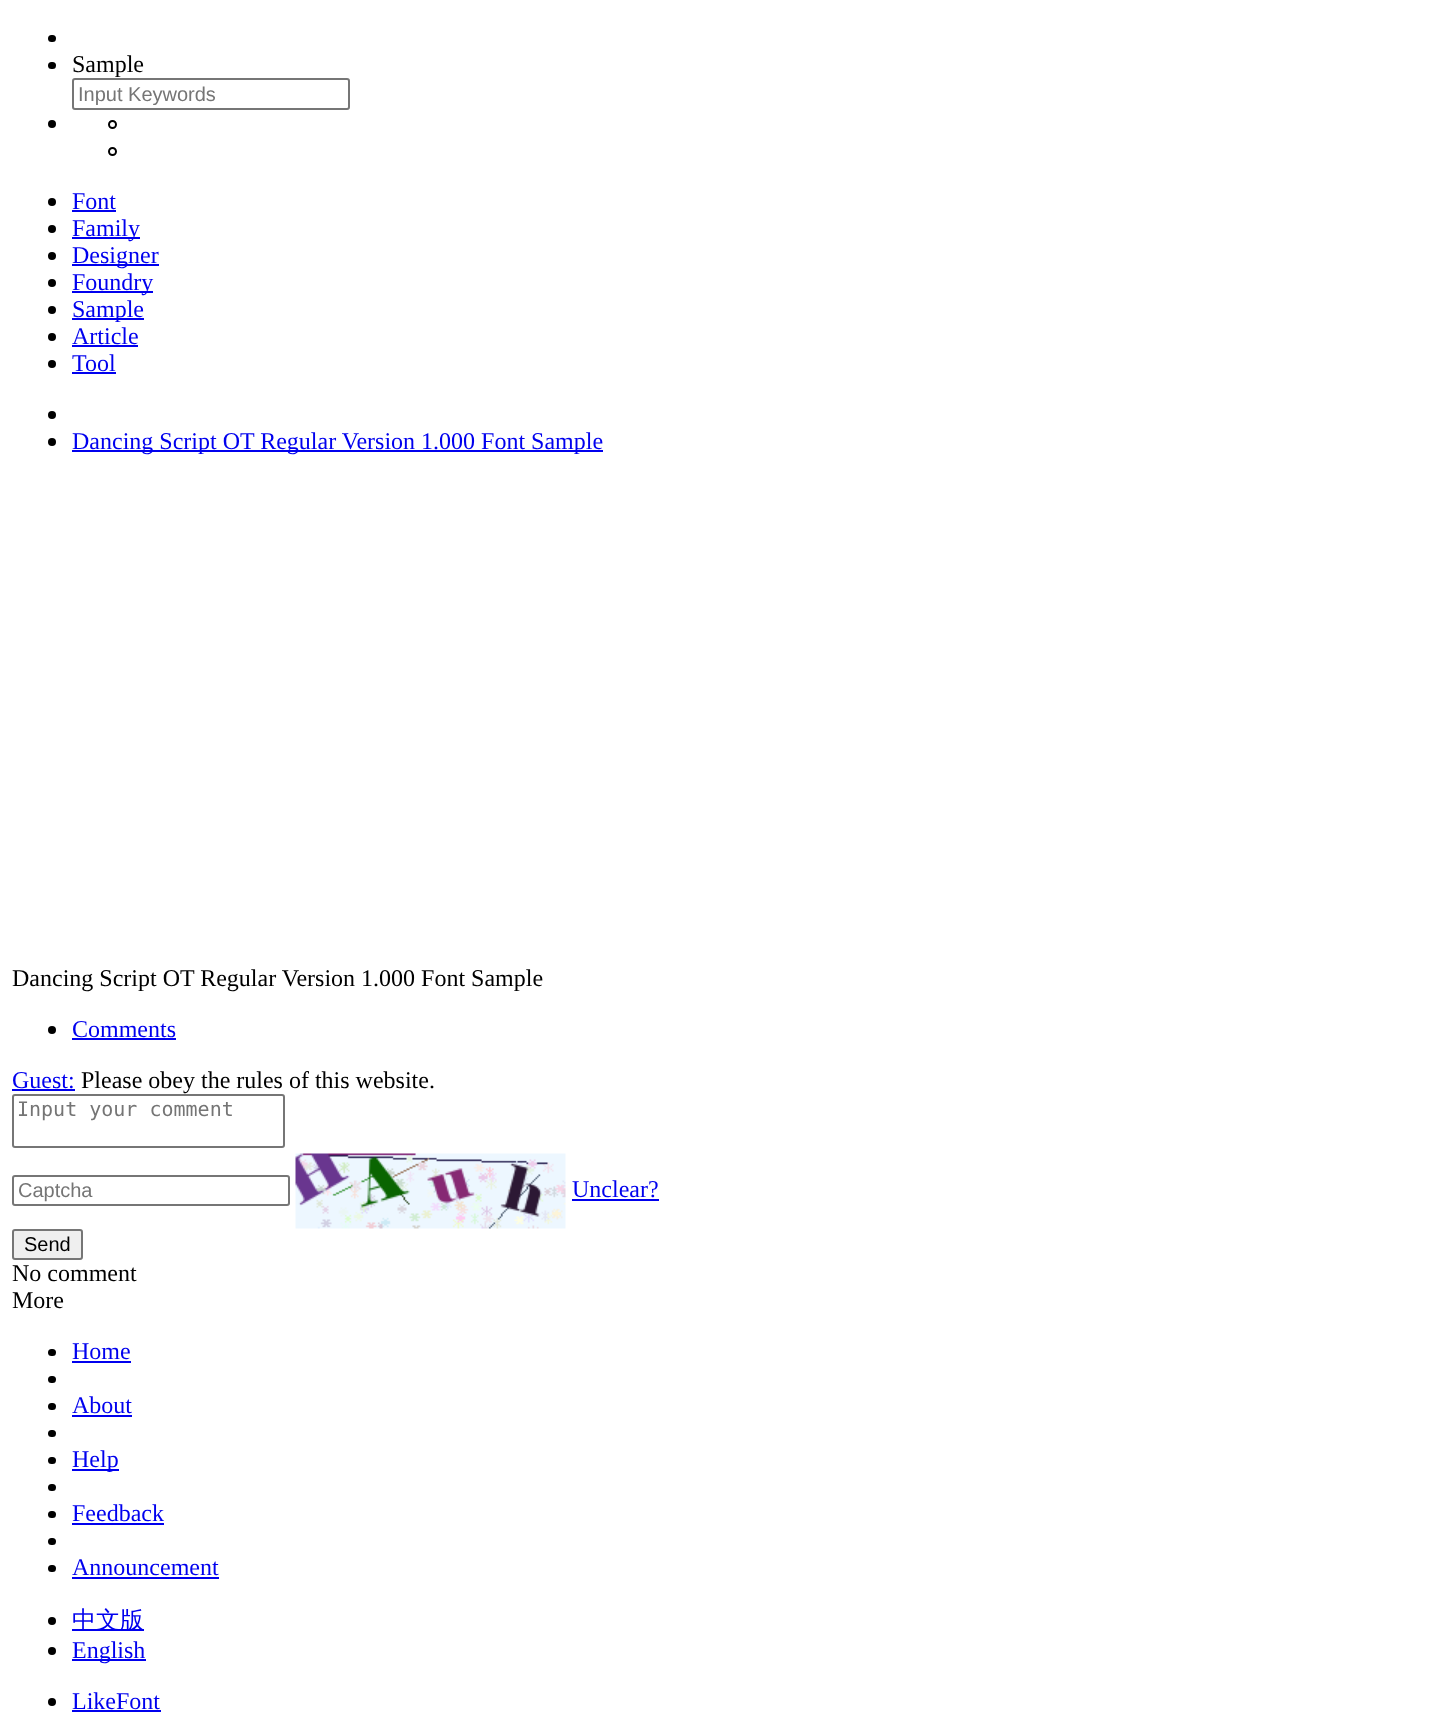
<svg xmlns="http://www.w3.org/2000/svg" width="1435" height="1732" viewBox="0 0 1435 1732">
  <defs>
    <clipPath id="clip1"><rect x="78" y="83" width="266" height="22"/></clipPath>
  </defs>
  <rect width="100%" height="100%" fill="rgb(255,255,255)"/>
  <rect x="48" y="35" width="8" height="7" rx="3.5" fill="rgb(0,0,0)"/>
  <rect x="48" y="62" width="8" height="7" rx="3.5" fill="rgb(0,0,0)"/>
  <text x="72" y="72" font-family="Liberation Serif" font-size="24" fill="rgb(0,0,0)">Sample</text>
  <rect x="73" y="79" width="276" height="30" rx="2" fill="none" stroke="rgb(118,118,118)" stroke-width="2"/>
  <g clip-path="url(#clip1)">
    <text x="78" y="101" font-family="Liberation Sans" font-size="20" fill="rgb(117,117,117)">Input Keywords</text>
  </g>
  <circle cx="52" cy="124" r="4" fill="rgb(0,0,0)"/>
  <circle cx="112.5" cy="124.5" r="3.5" fill="none" stroke="rgb(0,0,0)" stroke-width="2"/>
  <circle cx="112.5" cy="151.5" r="3.5" fill="none" stroke="rgb(0,0,0)" stroke-width="2"/>
  <circle cx="52" cy="202" r="4" fill="rgb(0,0,0)"/>
  <text x="72" y="209" font-family="Liberation Serif" font-size="24" fill="rgb(0,0,238)">Font</text>
  <rect x="72" y="210" width="44" height="2" fill="rgb(0,0,238)"/>
  <circle cx="52" cy="229" r="4" fill="rgb(0,0,0)"/>
  <rect x="72" y="237" width="68" height="2" fill="rgb(0,0,238)"/>
  <text x="72" y="236" font-family="Liberation Serif" font-size="24" fill="rgb(0,0,238)">Family</text>
  <circle cx="52" cy="256" r="4" fill="rgb(0,0,0)"/>
  <rect x="72" y="264" width="87" height="2" fill="rgb(0,0,238)"/>
  <text x="72" y="263" font-family="Liberation Serif" font-size="24" fill="rgb(0,0,238)">Designer</text>
  <circle cx="52" cy="283" r="4" fill="rgb(0,0,0)"/>
  <rect x="72" y="291" width="81" height="2" fill="rgb(0,0,238)"/>
  <text x="72" y="290" font-family="Liberation Serif" font-size="24" fill="rgb(0,0,238)">Foundry</text>
  <circle cx="52" cy="310" r="4" fill="rgb(0,0,0)"/>
  <rect x="72" y="318" width="72" height="2" fill="rgb(0,0,238)"/>
  <text x="72" y="317" font-family="Liberation Serif" font-size="24" fill="rgb(0,0,238)">Sample</text>
  <circle cx="52" cy="337" r="4" fill="rgb(0,0,0)"/>
  <text x="72" y="344" font-family="Liberation Serif" font-size="24" fill="rgb(0,0,238)">Article</text>
  <rect x="72" y="345" width="66" height="2" fill="rgb(0,0,238)"/>
  <circle cx="52" cy="364" r="4" fill="rgb(0,0,0)"/>
  <text x="72" y="371" font-family="Liberation Serif" font-size="24" fill="rgb(0,0,238)">Tool</text>
  <rect x="72" y="372" width="44" height="2" fill="rgb(0,0,238)"/>
  <circle cx="52" cy="415" r="4" fill="rgb(0,0,0)"/>
  <circle cx="52" cy="442" r="4" fill="rgb(0,0,0)"/>
  <rect x="72" y="450" width="531" height="2" fill="rgb(0,0,238)"/>
  <text x="72" y="449" font-family="Liberation Serif" font-size="24" fill="rgb(0,0,238)">Dancing Script OT Regular Version 1.000 Font Sample</text>
  <text x="12" y="986" font-family="Liberation Serif" font-size="24" fill="rgb(0,0,0)">Dancing Script OT Regular Version 1.000 Font Sample</text>
  <circle cx="52" cy="1030" r="4" fill="rgb(0,0,0)"/>
  <text x="72" y="1037" font-family="Liberation Serif" font-size="24" fill="rgb(0,0,238)">Comments</text>
  <rect x="72" y="1038" width="104" height="2" fill="rgb(0,0,238)"/>
  <text x="12" y="1088" font-family="Liberation Serif" font-size="24" fill="rgb(0,0,238)">Guest:</text>
  <rect x="12" y="1089" width="63" height="2" fill="rgb(0,0,238)"/>
  <text x="81" y="1088" font-family="Liberation Serif" font-size="24" fill="rgb(0,0,0)">Please obey the rules of this website.</text>
  <rect x="13" y="1095" width="271" height="52" rx="2" fill="none" stroke="rgb(118,118,118)" stroke-width="2"/>
  <text x="17" y="1116" font-family="DejaVu Sans Mono" font-size="20" fill="rgb(117,117,117)">Input your comment</text>
  <rect x="13" y="1176" width="276" height="29" rx="2" fill="none" stroke="rgb(118,118,118)" stroke-width="2"/>
  <text x="18" y="1197" font-family="Liberation Sans" font-size="20" fill="rgb(117,117,117)">Captcha</text>
  <image x="295" y="1153" width="271" height="76" href="pic1.png"/>
  <text x="572" y="1197" font-family="Liberation Serif" font-size="24" fill="rgb(0,0,238)">Unclear?</text>
  <rect x="572" y="1199" width="87" height="2" fill="rgb(0,0,238)"/>
  <rect x="13" y="1230" width="69" height="29" rx="2" fill="rgb(239,239,239)" stroke="rgb(118,118,118)" stroke-width="2"/>
  <text x="24" y="1251" font-family="Liberation Sans" font-size="20" fill="rgb(0,0,0)">Send</text>
  <g font-family="Liberation Serif" font-size="24" fill="rgb(0,0,0)">
    <text>
      <tspan x="12" y="1281">No comment</tspan>
      <tspan x="12" y="1308">More</tspan>
    </text>
  </g>
  <rect x="48" y="1349" width="8" height="7" rx="3.5" fill="rgb(0,0,0)"/>
  <text x="72" y="1359" font-family="Liberation Serif" font-size="24" fill="rgb(0,0,238)">Home</text>
  <rect x="72" y="1361" width="59" height="2" fill="rgb(0,0,238)"/>
  <rect x="48" y="1376" width="8" height="7" rx="3.5" fill="rgb(0,0,0)"/>
  <rect x="48" y="1403" width="8" height="7" rx="3.5" fill="rgb(0,0,0)"/>
  <text x="72" y="1413" font-family="Liberation Serif" font-size="24" fill="rgb(0,0,238)">About</text>
  <rect x="72" y="1415" width="60" height="2" fill="rgb(0,0,238)"/>
  <rect x="48" y="1430" width="8" height="7" rx="3.5" fill="rgb(0,0,0)"/>
  <rect x="48" y="1457" width="8" height="7" rx="3.5" fill="rgb(0,0,0)"/>
  <rect x="72" y="1469" width="47" height="2" fill="rgb(0,0,238)"/>
  <text x="72" y="1467" font-family="Liberation Serif" font-size="24" fill="rgb(0,0,238)">Help</text>
  <rect x="48" y="1484" width="8" height="7" rx="3.5" fill="rgb(0,0,0)"/>
  <rect x="48" y="1511" width="8" height="7" rx="3.5" fill="rgb(0,0,0)"/>
  <text x="72" y="1521" font-family="Liberation Serif" font-size="24" fill="rgb(0,0,238)">Feedback</text>
  <rect x="72" y="1523" width="92" height="2" fill="rgb(0,0,238)"/>
  <rect x="48" y="1538" width="8" height="7" rx="3.5" fill="rgb(0,0,0)"/>
  <rect x="48" y="1565" width="8" height="7" rx="3.5" fill="rgb(0,0,0)"/>
  <text x="72" y="1575" font-family="Liberation Serif" font-size="24" fill="rgb(0,0,238)">Announcement</text>
  <rect x="72" y="1577" width="147" height="2" fill="rgb(0,0,238)"/>
  <circle cx="52" cy="1621" r="4" fill="rgb(0,0,0)"/>
  <rect x="72" y="1629" width="72" height="2" fill="rgb(0,0,238)"/>
  <text x="72" y="1628" font-family="WenQuanYi Zen Hei" font-size="24" font-weight="500" fill="rgb(0,0,238)">中文版</text>
  <circle cx="52" cy="1651" r="4" fill="rgb(0,0,0)"/>
  <rect x="72" y="1659" width="74" height="2" fill="rgb(0,0,238)"/>
  <text x="72" y="1658" font-family="Liberation Serif" font-size="24" fill="rgb(0,0,238)">English</text>
  <circle cx="52" cy="1702" r="4" fill="rgb(0,0,0)"/>
  <text x="72" y="1709" font-family="Liberation Serif" font-size="24" fill="rgb(0,0,238)">LikeFont</text>
  <rect x="72" y="1710" width="89" height="2" fill="rgb(0,0,238)"/>
</svg>
